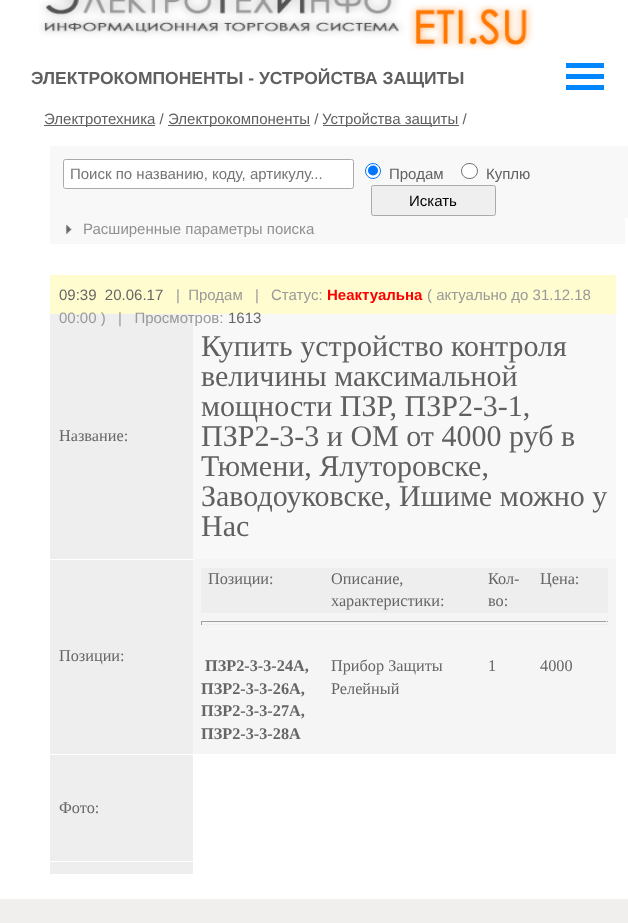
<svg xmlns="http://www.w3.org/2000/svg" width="628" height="923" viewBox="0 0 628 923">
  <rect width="100%" height="100%" fill="rgb(255,255,255)"/>
  <image x="39" y="0" width="495" height="50" href="pic1.png"/>
  <rect x="566" y="63" width="38" height="5" fill="rgb(0,135,255)"/>
  <rect x="566" y="74" width="38" height="5" fill="rgb(0,135,255)"/>
  <rect x="566" y="85" width="38" height="5" fill="rgb(0,135,255)"/>
  <text x="31" y="84" font-family="Liberation Sans" font-size="17.5" font-weight="bold" fill="rgb(96,96,96)">ЭЛЕКТРОКОМПОНЕНТЫ - УСТРОЙСТВА ЗАЩИТЫ</text>
  <rect x="44" y="125" width="111" height="1" fill="rgb(96,96,96)"/>
  <text x="44" y="124" font-family="Liberation Sans" font-size="15" fill="rgb(96,96,96)">Электротехника /</text>
  <rect x="168" y="125" width="142" height="1" fill="rgb(96,96,96)"/>
  <text x="168" y="124" font-family="Liberation Sans" font-size="15" fill="rgb(96,96,96)">Электрокомпоненты /</text>
  <rect x="323" y="125" width="136" height="1" fill="rgb(96,96,96)"/>
  <text x="322" y="124" font-family="Liberation Sans" font-size="15" fill="rgb(96,96,96)">Устройства защиты /</text>
  <rect x="50" y="146" width="578" height="72" fill="rgb(248,248,248)"/>
  <rect x="63.5" y="159.5" width="290" height="29" rx="2" fill="rgb(255,255,255)" stroke="rgb(170,170,170)"/>
  <text x="70" y="179" font-family="Liberation Sans" font-size="15" fill="rgb(117,117,117)">Поиск по названию, коду, артикулу...</text>
  <circle cx="373" cy="171" r="7.5" fill="rgb(255,255,255)" stroke="rgb(0,117,255)"/>
  <circle cx="373" cy="170.5" r="5" fill="rgb(0,117,255)"/>
  <text x="389" y="179" font-family="Liberation Sans" font-size="15" fill="rgb(96,96,96)">Продам</text>
  <rect x="461.5" y="163.5" width="16" height="15" rx="7.5" fill="rgb(255,255,255)" stroke="rgb(118,118,118)"/>
  <text x="486" y="179" font-family="Liberation Sans" font-size="15" fill="rgb(96,96,96)">Куплю</text>
  <rect x="371.5" y="185.5" width="124" height="30" rx="2" fill="rgb(239,239,239)" stroke="rgb(170,170,170)"/>
  <text x="409" y="206" font-family="Liberation Sans" font-size="15" fill="rgb(0,0,0)">Искать</text>
  <rect x="50" y="218" width="575" height="26" fill="rgb(248,248,248)"/>
  <image x="65" y="224" width="7" height="11" href="pic2.png"/>
  <text x="83" y="234" font-family="Liberation Sans" font-size="15" fill="rgb(144,144,144)">Расширенные параметры поиска</text>
  <rect x="50" y="275" width="566" height="39" fill="rgb(255,252,207)"/>
  <text x="59" y="300" font-family="Liberation Sans" font-size="15" fill="rgb(102,102,102)" xml:space="preserve">09:39  20.06.17</text>
  <g font-family="Liberation Sans" font-size="15" fill="rgb(153,153,153)">
    <text x="176" y="300" xml:space="preserve">|  Продам</text>
    <text x="255" y="300">|</text>
    <text x="271" y="300">Статус:</text>
  </g>
  <text x="327" y="300" font-family="Liberation Sans" font-size="15" font-weight="bold" fill="rgb(255,0,0)">Неактуальна</text>
  <text x="427" y="300" font-family="Liberation Sans" font-size="15" fill="rgb(153,153,153)">( актуально до 31.12.18</text>
  <rect x="50" y="314" width="143" height="245" fill="rgb(238,238,238)"/>
  <text x="59" y="323" font-family="Liberation Sans" font-size="15" fill="rgb(153,153,153)">00:00 )</text>
  <rect x="193" y="314" width="423" height="245" fill="rgb(248,248,248)"/>
  <text x="118" y="323" font-family="Liberation Sans" font-size="15" fill="rgb(153,153,153)" xml:space="preserve">|   Просмотров:</text>
  <text x="228" y="323" font-family="Liberation Sans" font-size="15" fill="rgb(102,102,102)">1613</text>
  <rect x="193" y="559" width="423" height="195" fill="rgb(245,245,245)"/>
  <rect x="193" y="559" width="1" height="1" fill="rgb(255,255,255)"/>
  <text x="59" y="441" font-family="Liberation Serif" font-size="16.25" fill="rgb(102,102,102)">Название:</text>
  <g font-family="Liberation Serif" font-size="30" fill="rgb(96,96,96)">
    <text>
      <tspan x="201" y="356">Купить устройство контроля</tspan>
      <tspan x="201" y="386">величины максимальной</tspan>
      <tspan x="201" y="416">мощности ПЗР, ПЗР2-3-1,</tspan>
      <tspan x="201" y="446">ПЗР2-3-3 и ОМ от 4000 руб в</tspan>
      <tspan x="201" y="476">Тюмени, Ялуторовске,</tspan>
      <tspan x="201" y="506">Заводоуковске, Ишиме можно у</tspan>
      <tspan x="201" y="536">Нас</tspan>
    </text>
  </g>
  <rect x="50" y="560" width="143" height="194" fill="rgb(238,238,238)"/>
  <text x="59" y="661" font-family="Liberation Serif" font-size="16.25" fill="rgb(102,102,102)">Позиции:</text>
  <rect x="201" y="568" width="407" height="45" fill="rgb(238,238,238)"/>
  <g font-family="Liberation Serif" font-size="16.25" fill="rgb(102,102,102)">
    <text x="208" y="584">Позиции:</text>
    <text>
      <tspan x="331" y="584">Описание,</tspan>
      <tspan x="331" y="606">характеристики:</tspan>
    </text>
    <text>
      <tspan x="488" y="584">Кол-</tspan>
      <tspan x="488" y="606">во:</tspan>
    </text>
    <text x="540" y="584">Цена:</text>
  </g>
  <rect x="201" y="621" width="407" height="1" fill="rgb(159,159,159)"/>
  <rect x="606" y="621" width="1" height="4" fill="rgb(238,238,238)"/>
  <rect x="201" y="624" width="407" height="1" fill="rgb(238,238,238)"/>
  <rect x="201" y="621" width="1" height="4" fill="rgb(159,159,159)"/>
  <g font-family="Liberation Serif" font-size="16.25" font-weight="bold" fill="rgb(102,102,102)">
    <text x="205" y="671">ПЗР2-3-3-24А,</text>
    <text>
      <tspan x="201" y="694">ПЗР2-3-3-26А,</tspan>
      <tspan x="201" y="716">ПЗР2-3-3-27А,</tspan>
      <tspan x="201" y="739">ПЗР2-3-3-28А</tspan>
    </text>
  </g>
  <g font-family="Liberation Serif" font-size="16.25" fill="rgb(102,102,102)">
    <text>
      <tspan x="331" y="671">Прибор Защиты</tspan>
      <tspan x="331" y="694">Релейный</tspan>
    </text>
    <text x="488" y="671">1</text>
    <text x="540" y="671">4000</text>
  </g>
  <rect x="50" y="755" width="143" height="106" fill="rgb(238,238,238)"/>
  <text x="59" y="813" font-family="Liberation Serif" font-size="16.25" fill="rgb(102,102,102)">Фото:</text>
  <rect x="50" y="862" width="143" height="12" fill="rgb(238,238,238)"/>
  <rect x="0" y="899" width="628" height="24" fill="rgb(240,239,237)"/>
</svg>
